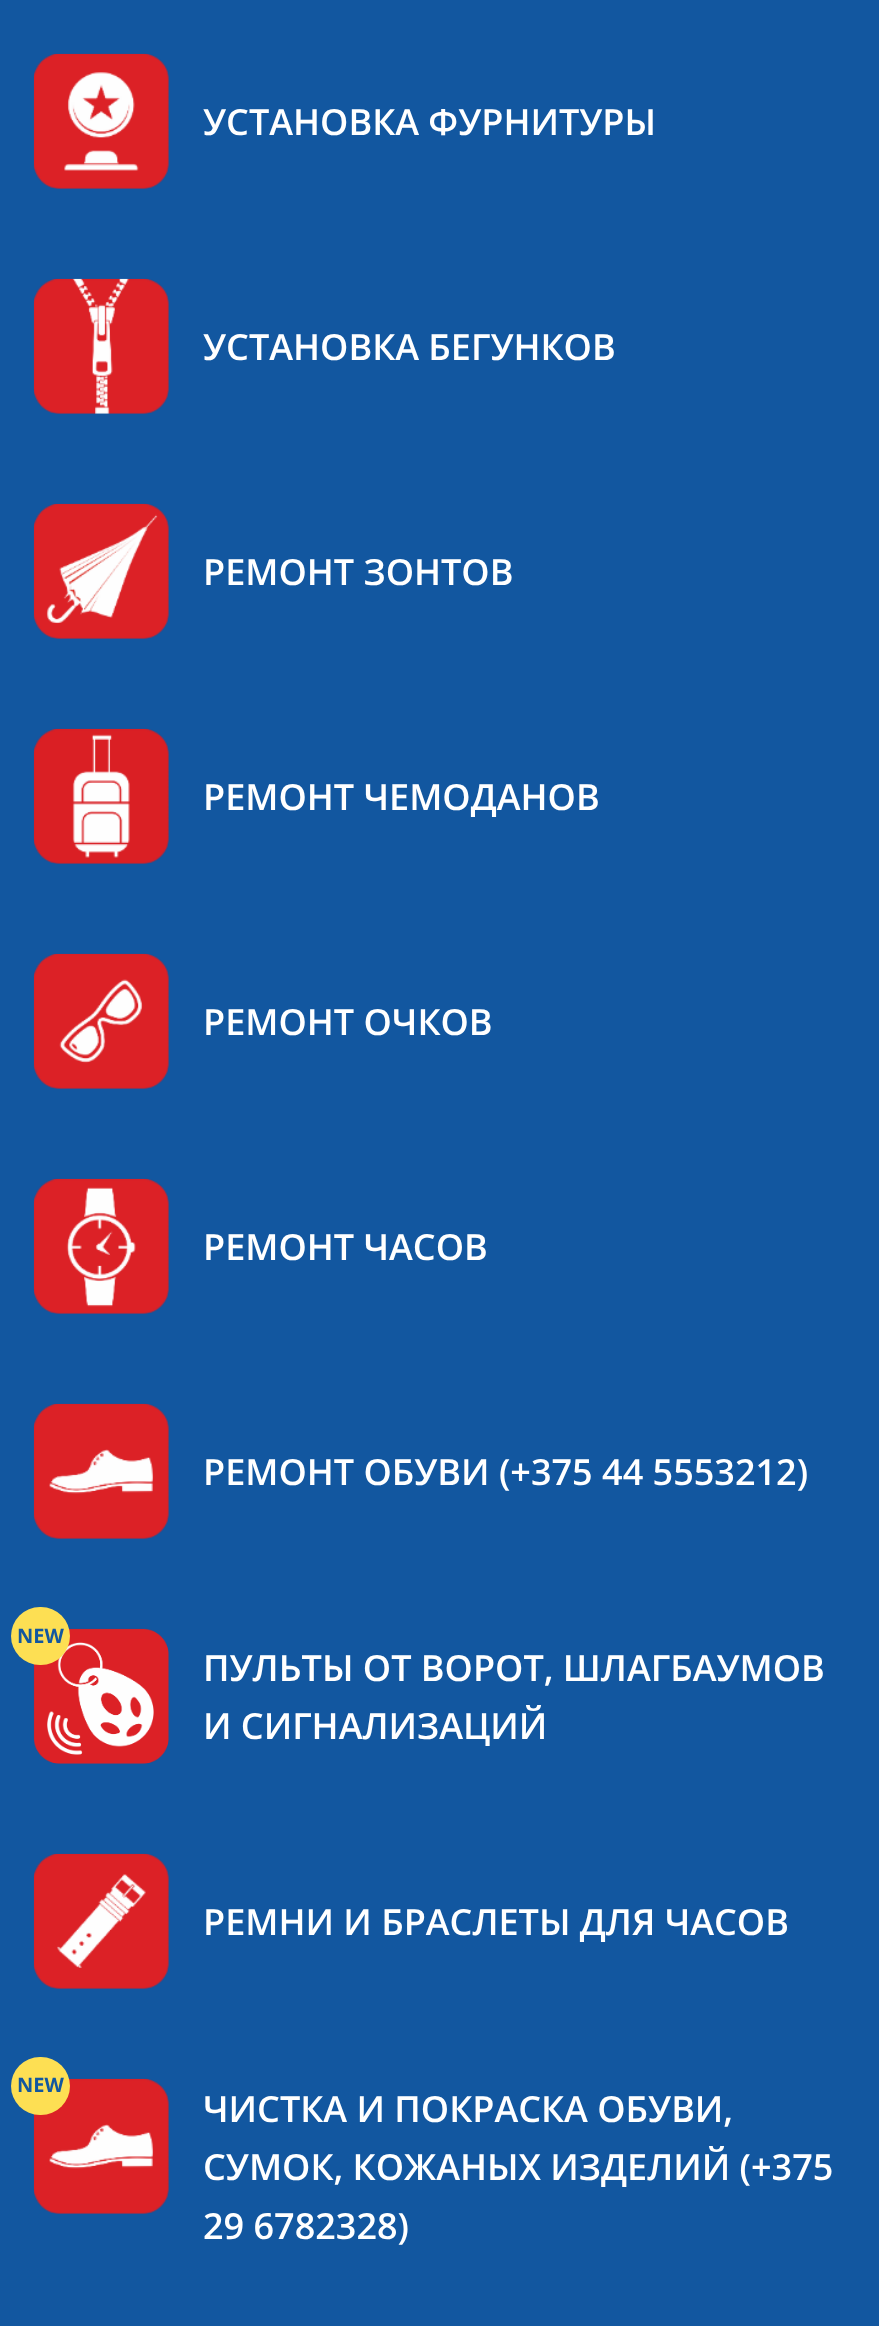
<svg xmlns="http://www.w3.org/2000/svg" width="879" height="2326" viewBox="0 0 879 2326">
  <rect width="100%" height="100%" fill="rgb(18,87,160)"/>
  <image x="33" y="53" width="136" height="136" href="pic1.png"/>
  <text x="203" y="135" font-family="Open Sans" font-size="36" font-weight="600" fill="rgb(255,255,255)">УСТАНОВКА ФУРНИТУРЫ</text>
  <image x="33" y="278" width="136" height="136" href="pic2.png"/>
  <text x="203" y="360" font-family="Open Sans" font-size="36" font-weight="600" fill="rgb(255,255,255)">УСТАНОВКА БЕГУНКОВ</text>
  <image x="33" y="503" width="136" height="136" href="pic3.png"/>
  <text x="203" y="585" font-family="Open Sans" font-size="36" font-weight="600" fill="rgb(255,255,255)">РЕМОНТ ЗОНТОВ</text>
  <image x="33" y="728" width="136" height="136" href="pic4.png"/>
  <text x="203" y="810" font-family="Open Sans" font-size="36" font-weight="600" fill="rgb(255,255,255)">РЕМОНТ ЧЕМОДАНОВ</text>
  <image x="33" y="953" width="136" height="136" href="pic5.png"/>
  <text x="203" y="1035" font-family="Open Sans" font-size="36" font-weight="600" fill="rgb(255,255,255)">РЕМОНТ ОЧКОВ</text>
  <image x="33" y="1178" width="136" height="136" href="pic6.png"/>
  <text x="203" y="1260" font-family="Open Sans" font-size="36" font-weight="600" fill="rgb(255,255,255)">РЕМОНТ ЧАСОВ</text>
  <image x="33" y="1403" width="136" height="136" href="pic7.png"/>
  <text x="203" y="1485" font-family="Open Sans" font-size="36" font-weight="600" fill="rgb(255,255,255)">РЕМОНТ ОБУВИ (+375 44 5553212)</text>
  <image x="33" y="1628" width="136" height="136" href="pic8.png"/>
  <rect x="11" y="1607" width="59" height="58" rx="29" fill="rgb(253,223,83)"/>
  <text x="17" y="1643" font-family="Open Sans" font-size="20" font-weight="bold" fill="rgb(18,87,160)">NEW</text>
  <g font-family="Open Sans" font-size="36" font-weight="600" fill="rgb(255,255,255)">
    <text>
      <tspan x="203" y="1681">ПУЛЬТЫ ОТ ВОРОТ, ШЛАГБАУМОВ</tspan>
      <tspan x="203" y="1739">И СИГНАЛИЗАЦИЙ</tspan>
    </text>
  </g>
  <image x="33" y="1853" width="136" height="136" href="pic9.png"/>
  <text x="203" y="1935" font-family="Open Sans" font-size="36" font-weight="600" fill="rgb(255,255,255)">РЕМНИ И БРАСЛЕТЫ ДЛЯ ЧАСОВ</text>
  <image x="33" y="2078" width="136" height="136" href="pic10.png"/>
  <rect x="11" y="2057" width="59" height="58" rx="29" fill="rgb(253,223,83)"/>
  <text x="17" y="2092" font-family="Open Sans" font-size="20" font-weight="bold" fill="rgb(18,87,160)">NEW</text>
  <g font-family="Open Sans" font-size="36" font-weight="600" fill="rgb(255,255,255)">
    <text>
      <tspan x="203" y="2122">ЧИСТКА И ПОКРАСКА ОБУВИ,</tspan>
      <tspan x="203" y="2180">СУМОК, КОЖАНЫХ ИЗДЕЛИЙ (+375</tspan>
      <tspan x="203" y="2239">29 6782328)</tspan>
    </text>
  </g>
</svg>
